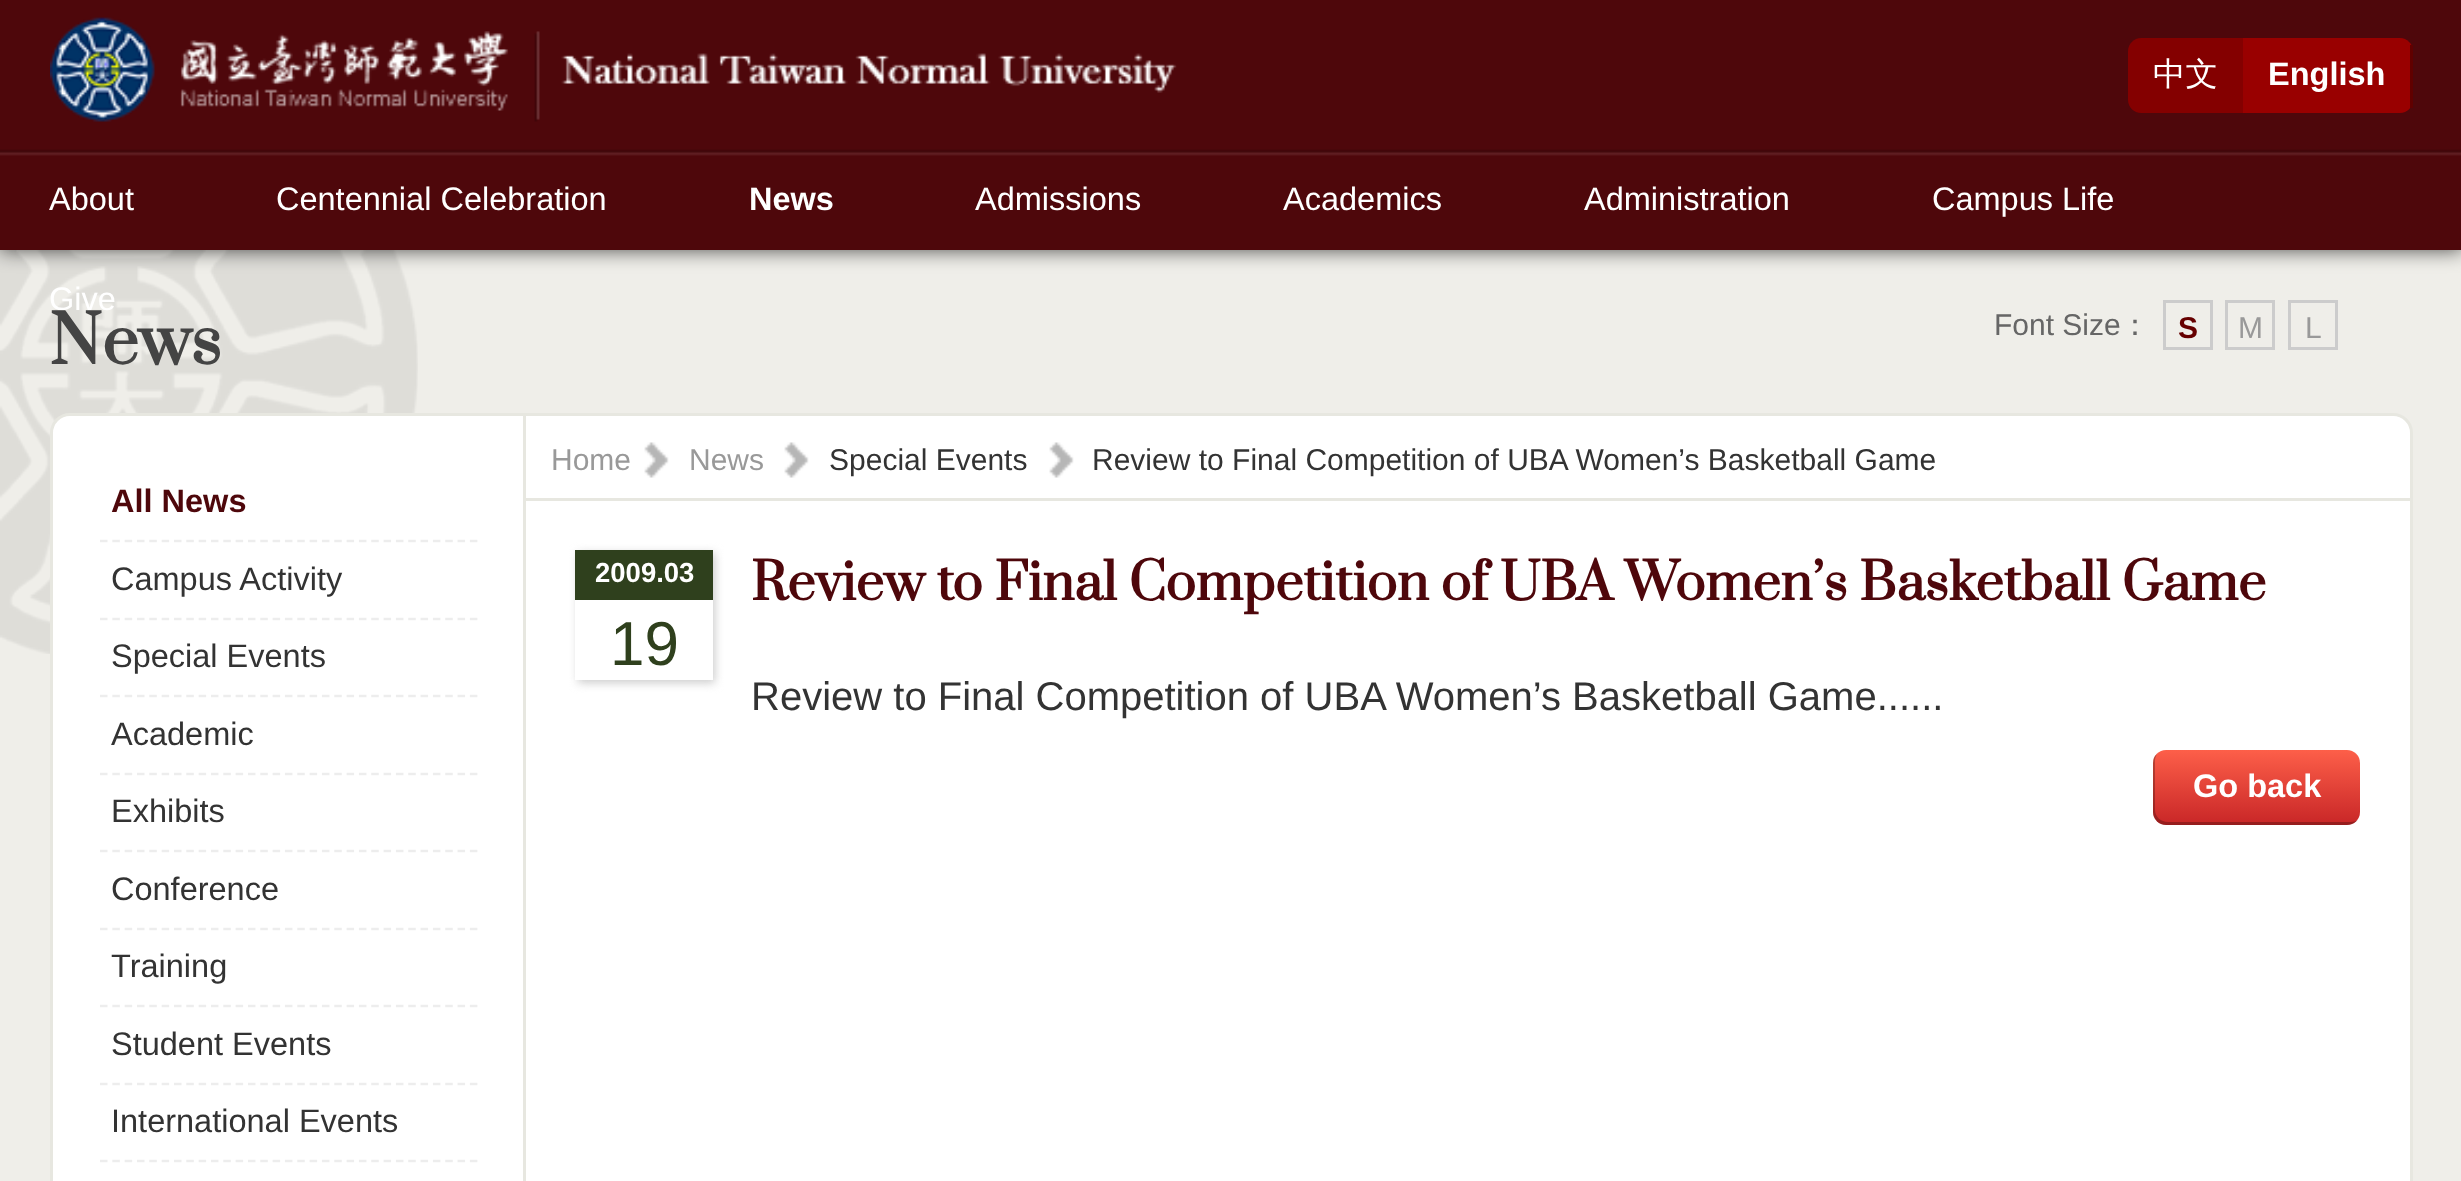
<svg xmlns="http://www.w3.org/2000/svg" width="2461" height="1181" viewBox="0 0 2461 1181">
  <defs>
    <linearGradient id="g1" gradientUnits="userSpaceOnUse" x1="2256" y1="750" x2="2256" y2="825"><stop offset="0" stop-color="rgb(253,95,73)"/><stop offset="1" stop-color="rgb(200,38,39)"/></linearGradient>
  </defs>
  <rect width="100%" height="100%" fill="rgb(239,238,233)"/>
  <rect x="0" y="0" width="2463" height="250" fill="rgba(0,0,0,0.7)" filter="blur(10px)"/>
  <image x="0" y="0" width="2461" height="250" href="pic1.png"/>
  <image x="50" y="17" width="1127" height="105" href="pic2.png"/>
  <path d="M2141 38H2243V113H2141C2134 113 2128 107 2128 100V51C2128 44 2134 38 2141 38Z" fill="rgb(132,0,0)"/>
  <text x="2153" y="85" font-family="WenQuanYi Zen Hei" font-size="32.5" font-weight="500" fill="rgb(255,255,255)">中文</text>
  <path d="M2243 38H2400C2407 38 2413 44 2413 51V100C2413 107 2407 113 2400 113H2243Z" fill="rgb(153,0,0)"/>
  <rect x="2410" y="45" width="3" height="63" fill="rgb(96,0,0)"/>
  <text x="2268" y="85" font-family="Liberation Sans" font-size="32.5" font-weight="bold" fill="rgb(255,255,255)">English</text>
  <g font-family="Liberation Sans" font-size="32.5" fill="rgb(255,255,255)">
    <text x="49" y="210">About</text>
    <text x="276" y="210">Centennial Celebration</text>
  </g>
  <text x="749" y="210" font-family="Liberation Sans" font-size="32.5" font-weight="bold" fill="rgb(255,255,255)">News</text>
  <g font-family="Liberation Sans" font-size="32.5" fill="rgb(255,255,255)">
    <text x="975" y="210">Admissions</text>
    <text x="1283" y="210">Academics</text>
    <text x="1584" y="210">Administration</text>
    <text x="1932" y="210">Campus Life</text>
  </g>
  <image x="0" y="250" width="418" height="404" href="pic3.png"/>
  <text x="49" y="310" font-family="Liberation Sans" font-size="32.5" fill="rgb(255,255,255)">Give</text>
  <text x="49" y="364" font-family="Prata" font-size="65" font-weight="bold" fill="rgb(68,68,68)">News</text>
  <text x="1994" y="335" font-family="Liberation Sans" font-size="30" fill="rgb(102,102,102)">Font Size</text>
  <text x="2120" y="335" font-family="WenQuanYi Zen Hei" font-size="30" font-weight="500" fill="rgb(102,102,102)">：</text>
  <rect x="2164.5" y="301.5" width="47" height="47" fill="none" stroke="rgb(204,204,204)" stroke-width="3"/>
  <text x="2178" y="338" font-family="Liberation Sans" font-size="30" font-weight="bold" fill="rgb(102,0,0)">S</text>
  <rect x="2226.5" y="301.5" width="47" height="47" fill="none" stroke="rgb(204,204,204)" stroke-width="3"/>
  <text x="2238" y="338" font-family="Liberation Sans" font-size="30" fill="rgb(153,153,153)">M</text>
  <rect x="2289.5" y="301.5" width="47" height="47" fill="none" stroke="rgb(204,204,204)" stroke-width="3"/>
  <text x="2305" y="338" font-family="Liberation Sans" font-size="30" fill="rgb(153,153,153)">L</text>
  <rect x="51.5" y="414.5" width="2360" height="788" rx="18.5" fill="rgb(255,255,255)" stroke="rgb(231,231,224)" stroke-width="3"/>
  <path d="M100 541H477.5" fill="none" stroke="rgb(237,237,237)" stroke-width="2.5" stroke-dasharray="7.5 4.83"/>
  <text x="111" y="512" font-family="Liberation Sans" font-size="32.5" font-weight="bold" fill="rgb(78,7,11)">All News</text>
  <path d="M100 619H477.5" fill="none" stroke="rgb(237,237,237)" stroke-width="2.5" stroke-dasharray="7.5 4.83"/>
  <text x="111" y="590" font-family="Liberation Sans" font-size="32.5" fill="rgb(51,51,51)">Campus Activity</text>
  <path d="M100 696H477.5" fill="none" stroke="rgb(237,237,237)" stroke-width="2.5" stroke-dasharray="7.5 4.83"/>
  <text x="111" y="667" font-family="Liberation Sans" font-size="32.5" fill="rgb(51,51,51)">Special Events</text>
  <path d="M100 774H477.5" fill="none" stroke="rgb(237,237,237)" stroke-width="2.5" stroke-dasharray="7.5 4.83"/>
  <text x="111" y="745" font-family="Liberation Sans" font-size="32.5" fill="rgb(51,51,51)">Academic</text>
  <path d="M100 851H477.5" fill="none" stroke="rgb(237,237,237)" stroke-width="2.5" stroke-dasharray="7.5 4.83"/>
  <text x="111" y="822" font-family="Liberation Sans" font-size="32.5" fill="rgb(51,51,51)">Exhibits</text>
  <path d="M100 929H477.5" fill="none" stroke="rgb(237,237,237)" stroke-width="2.5" stroke-dasharray="7.5 4.83"/>
  <text x="111" y="900" font-family="Liberation Sans" font-size="32.5" fill="rgb(51,51,51)">Conference</text>
  <path d="M100 1006H477.5" fill="none" stroke="rgb(237,237,237)" stroke-width="2.5" stroke-dasharray="7.5 4.83"/>
  <text x="111" y="977" font-family="Liberation Sans" font-size="32.5" fill="rgb(51,51,51)">Training</text>
  <path d="M100 1084H477.5" fill="none" stroke="rgb(237,237,237)" stroke-width="2.5" stroke-dasharray="7.5 4.83"/>
  <text x="111" y="1055" font-family="Liberation Sans" font-size="32.5" fill="rgb(51,51,51)">Student Events</text>
  <path d="M100 1161H477.5" fill="none" stroke="rgb(237,237,237)" stroke-width="2.5" stroke-dasharray="7.5 4.83"/>
  <text x="111" y="1132" font-family="Liberation Sans" font-size="32.5" fill="rgb(51,51,51)">International Events</text>
  <rect x="523" y="415" width="3" height="766" fill="rgb(231,231,224)"/>
  <rect x="525" y="498" width="1885" height="3" fill="rgb(231,231,224)"/>
  <text x="551" y="470" font-family="Liberation Sans" font-size="30" fill="rgb(153,153,153)">Home</text>
  <image x="644" y="442" width="25" height="36" href="pic4.png"/>
  <text x="689" y="470" font-family="Liberation Sans" font-size="30" fill="rgb(153,153,153)">News</text>
  <image x="784" y="442" width="25" height="36" href="pic4.png"/>
  <text x="829" y="470" font-family="Liberation Sans" font-size="30" fill="rgb(51,51,51)">Special Events</text>
  <image x="1049" y="442" width="25" height="36" href="pic4.png"/>
  <text x="1092" y="470" font-family="Liberation Sans" font-size="30" fill="rgb(51,51,51)">Review to Final Competition of UBA Women’s Basketball Game</text>
  <rect x="578" y="553" width="137" height="130" fill="rgb(204,204,204)" filter="blur(5px)"/>
  <rect x="575" y="600" width="138" height="80" fill="rgb(255,255,255)"/>
  <rect x="575" y="550" width="138" height="50" fill="rgb(47,64,29)"/>
  <text x="595" y="582" font-family="Liberation Sans" font-size="27.5" font-weight="bold" fill="rgb(255,255,255)">2009.03</text>
  <text x="610" y="665" font-family="Liberation Sans" font-size="62" fill="rgb(47,64,29)">19</text>
  <text x="751" y="600" font-family="Prata" font-size="50" font-weight="bold" fill="rgb(78,7,11)">Review to Final Competition of UBA Women’s Basketball Game</text>
  <text x="751" y="710" font-family="Liberation Sans" font-size="40" fill="rgb(51,51,51)">Review to Final Competition of UBA Women’s Basketball Game......</text>
  <rect x="2153" y="750" width="207" height="75" rx="13" fill="url(#g1)"/>
  <path d="M2157 754C2156 756 2155 758 2155 760V810C2155 817 2161 822 2168 822H2350C2353 822 2356 821 2358 820C2355 823 2351 825 2347 825H2166C2159 825 2153 819 2153 812V763C2153 759 2154 756 2157 754Z" fill="rgba(0,0,0,0.25)"/>
  <text x="2193" y="797" font-family="Liberation Sans" font-size="32.5" font-weight="bold" fill="rgb(255,255,255)">Go back</text>
</svg>
